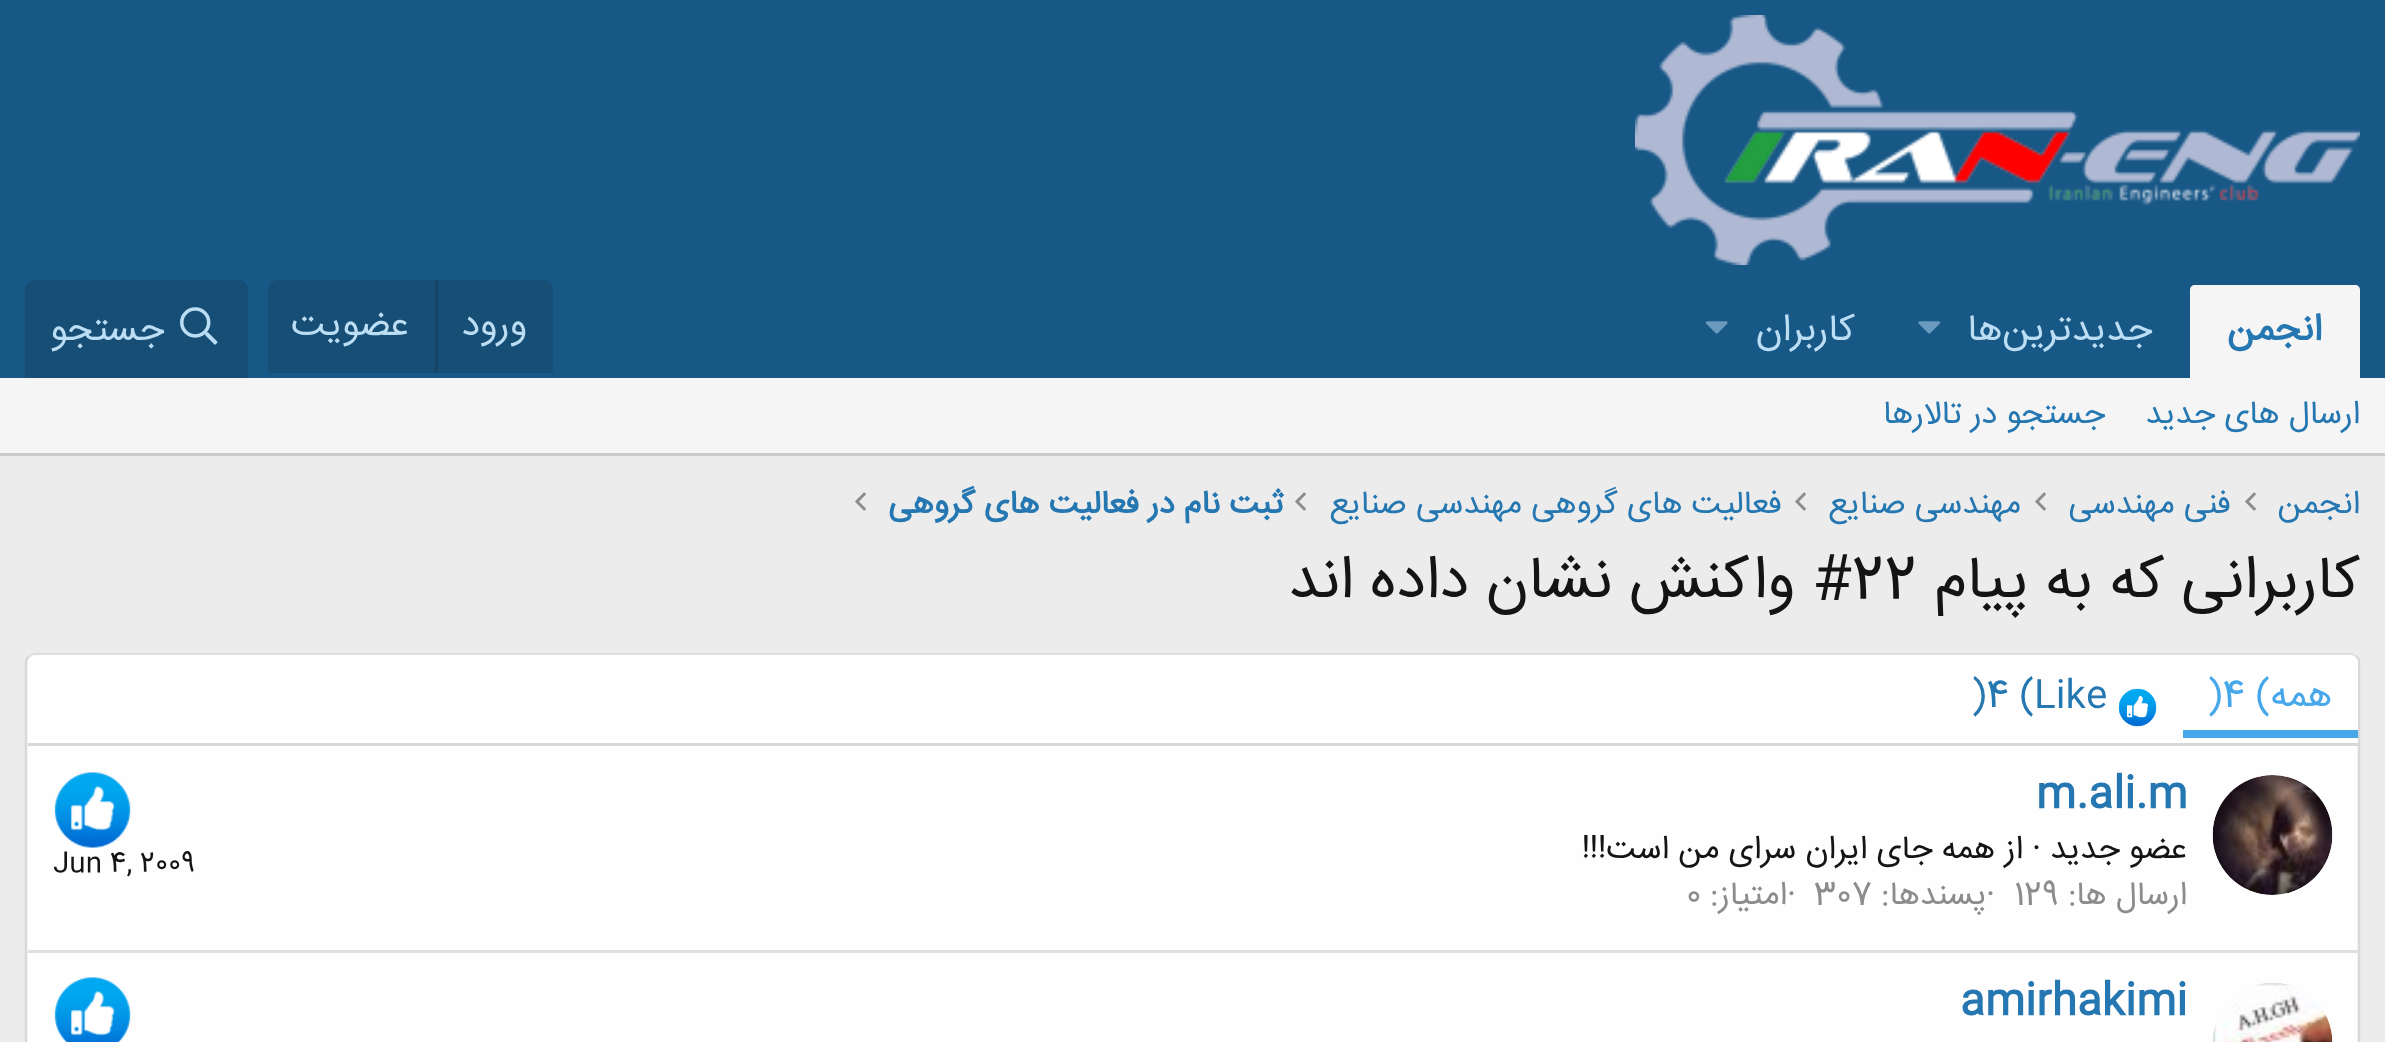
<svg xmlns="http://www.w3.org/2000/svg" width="2385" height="1042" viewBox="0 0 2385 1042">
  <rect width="100%" height="100%" fill="rgb(236,236,236)"/>
  <rect x="0" y="0" width="2385" height="378" fill="rgb(24,88,134)"/>
  <image x="1635" y="15" width="725" height="250" href="pic1.png"/>
  <path d="M2195 285H2355C2358 285 2360 287 2360 290V378H2190V290C2190 287 2192 285 2195 285Z" fill="rgb(245,245,245)"/>
  <text x="2322" y="340" font-family="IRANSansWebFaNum" font-size="37.5" font-weight="bold" direction="rtl" fill="rgb(37,119,177)">انجمن</text>
  <text x="2152" y="340" font-family="IRANSansWebFaNum" font-size="37.5" direction="rtl" fill="rgb(188,222,245)">جدیدترین‌ها</text>
  <image x="1918" y="321" width="22" height="13" href="pic2.png"/>
  <text x="1855" y="340" font-family="IRANSansWebFaNum" font-size="37.5" direction="rtl" fill="rgb(188,222,245)">کاربران</text>
  <image x="1705" y="321" width="23" height="13" href="pic3.png"/>
  <path d="M278 280H543C548.5 280 553 284.5 553 290V373H268V290C268 284.5 272.5 280 278 280Z" fill="rgb(23,78,117)"/>
  <text x="527" y="335" font-family="IRANSansWebFaNum" font-size="37.5" direction="rtl" fill="rgb(188,222,245)">ورود</text>
  <rect x="435" y="280" width="3" height="93" fill="rgb(23,69,102)"/>
  <text x="409" y="335" font-family="IRANSansWebFaNum" font-size="37.5" direction="rtl" fill="rgb(188,222,245)">عضویت</text>
  <path d="M35 280H238C243.5 280 248 284.5 248 290V378H25V290C25 284.5 29.5 280 35 280Z" fill="rgb(23,78,117)"/>
  <image x="180" y="307" width="38" height="38" href="pic4.png"/>
  <text x="164" y="340" font-family="IRANSansWebFaNum" font-size="37.5" direction="rtl" fill="rgb(188,222,245)">جستجو</text>
  <rect x="0" y="378" width="2385" height="75" fill="rgb(245,245,245)"/>
  <rect x="0" y="453" width="2385" height="3" fill="rgb(203,203,203)"/>
  <g font-family="IRANSansWebFaNum" font-size="32.5" direction="rtl" fill="rgb(37,119,177)">
    <text x="2360" y="423">ارسال های جدید</text>
    <text x="2105" y="423">جستجو در تالارها</text>
    <text x="2360" y="513">انجمن</text>
  </g>
  <image x="2245" y="492" width="11" height="19" href="pic5.png"/>
  <text x="2231" y="513" font-family="IRANSansWebFaNum" font-size="32.5" direction="rtl" fill="rgb(37,119,177)">فنی مهندسی</text>
  <image x="2035" y="492" width="11" height="19" href="pic5.png"/>
  <text x="2021" y="513" font-family="IRANSansWebFaNum" font-size="32.5" direction="rtl" fill="rgb(37,119,177)">مهندسی صنایع</text>
  <image x="1795" y="492" width="11" height="19" href="pic5.png"/>
  <text x="1782" y="513" font-family="IRANSansWebFaNum" font-size="32.5" direction="rtl" fill="rgb(37,119,177)">فعالیت های گروهی مهندسی صنایع</text>
  <image x="1295" y="492" width="11" height="19" href="pic5.png"/>
  <text x="1283" y="513" font-family="IRANSansWebFaNum" font-size="32.5" font-weight="bold" direction="rtl" fill="rgb(37,119,177)">ثبت نام در فعالیت های گروهی</text>
  <image x="855" y="492" width="11" height="19" href="pic5.png"/>
  <text x="2360" y="597" font-family="IRANSansWebFaNum" font-size="60" direction="rtl" fill="rgb(20,20,20)">کاربرانی که به پیام</text>
  <text x="1852" y="597" font-family="IRANSansWebFaNum" font-size="60" fill="rgb(20,20,20)">22</text>
  <text x="1852" y="597" font-family="IRANSansWebFaNum" font-size="60" direction="rtl" fill="rgb(20,20,20)"># واکنش نشان داده اند</text>
  <rect x="25" y="653" width="2335" height="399" rx="10" fill="rgb(254,254,254)"/>
  <path d="M29 656.5C30.5 654.5 32.5 654 35 654H2350C2352.5 654 2354.5 654.5 2356 656.5" fill="none" stroke="rgb(223,223,223)" stroke-width="2.5"/>
  <path d="M2356 656.5C2358 658 2359 660 2359 662.5V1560C2359 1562.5 2358 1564.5 2356 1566" fill="none" stroke="rgb(216,216,216)" stroke-width="2.5"/>
  <path d="M29 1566C27 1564.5 26 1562.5 26 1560V662.5C26 660 27 658 29 656.5" fill="none" stroke="rgb(216,216,216)" stroke-width="2.5"/>
  <path d="M36 655H2350C2354.5 655 2358 658.5 2358 663V745H28V663C28 658.5 31.5 655 36 655Z" fill="rgb(254,254,254)"/>
  <rect x="28" y="743" width="2330" height="3" fill="rgb(216,216,216)"/>
  <rect x="2183" y="730" width="175" height="8" fill="rgb(71,167,235)"/>
  <text x="2332" y="706" font-family="IRANSansWebFaNum" font-size="37.5" direction="rtl" fill="rgb(71,167,235)">همه</text>
  <text x="2208" y="706" font-family="IRANSansWebFaNum" font-size="37.5" fill="rgb(71,167,235)">)4 (</text>
  <image x="2118" y="688" width="39" height="39" href="pic6.png"/>
  <g font-family="IRANSansWebFaNum" font-size="37.5" fill="rgb(37,119,177)">
    <text x="2034" y="706">Like</text>
    <text x="1972" y="706">)4 (</text>
  </g>
  <image x="2212" y="775" width="121" height="120" href="pic7.png"/>
  <text x="2036" y="806" font-family="IRANSansWebFaNum" font-size="42.5" font-weight="bold" fill="rgb(37,119,177)">m.ali.m</text>
  <text x="2187" y="858" font-family="IRANSansWebFaNum" font-size="32.5" direction="rtl" fill="rgb(20,20,20)">عضو جدید</text>
  <text x="2032" y="858" font-family="IRANSansWebFaNum" font-size="32.5" fill="rgb(20,20,20)">·</text>
  <g font-family="IRANSansWebFaNum" font-size="32.5" direction="rtl" fill="rgb(20,20,20)">
    <text x="2023" y="858">از</text>
    <text x="1995" y="858">همه جای ایران سرای من است!!!</text>
  </g>
  <image x="54" y="772" width="77" height="76" href="pic8.png"/>
  <text x="53" y="871" font-family="IRANSansWebFaNum" font-size="27.5" fill="rgb(20,20,20)">Jun 4, 2009</text>
  <text x="2187" y="904" font-family="IRANSansWebFaNum" font-size="32.5" direction="rtl" fill="rgb(140,140,140)">ارسال ها</text>
  <g font-family="IRANSansWebFaNum" font-size="32.5" fill="rgb(140,140,140)">
    <text x="2068" y="904">:</text>
    <text x="2014" y="904">129</text>
    <text x="1986" y="904">·</text>
  </g>
  <text x="1986" y="904" font-family="IRANSansWebFaNum" font-size="32.5" direction="rtl" fill="rgb(140,140,140)">پسندها</text>
  <g font-family="IRANSansWebFaNum" font-size="32.5" fill="rgb(140,140,140)">
    <text x="1881" y="904">:</text>
    <text x="1814" y="904">307</text>
    <text x="1787" y="904">·</text>
  </g>
  <text x="1787" y="904" font-family="IRANSansWebFaNum" font-size="32.5" direction="rtl" fill="rgb(140,140,140)">امتیاز</text>
  <g font-family="IRANSansWebFaNum" font-size="32.5" fill="rgb(140,140,140)">
    <text x="1710" y="904">:</text>
    <text x="1686" y="904">0</text>
  </g>
  <rect x="28" y="950" width="2330" height="3" fill="rgb(223,223,223)"/>
  <image x="2213" y="983" width="120" height="59" href="pic9.png"/>
  <text x="1960" y="1013" font-family="IRANSansWebFaNum" font-size="42.5" font-weight="bold" fill="rgb(37,119,177)">amirhakimi</text>
  <image x="54" y="977" width="77" height="65" href="pic10.png"/>
</svg>
